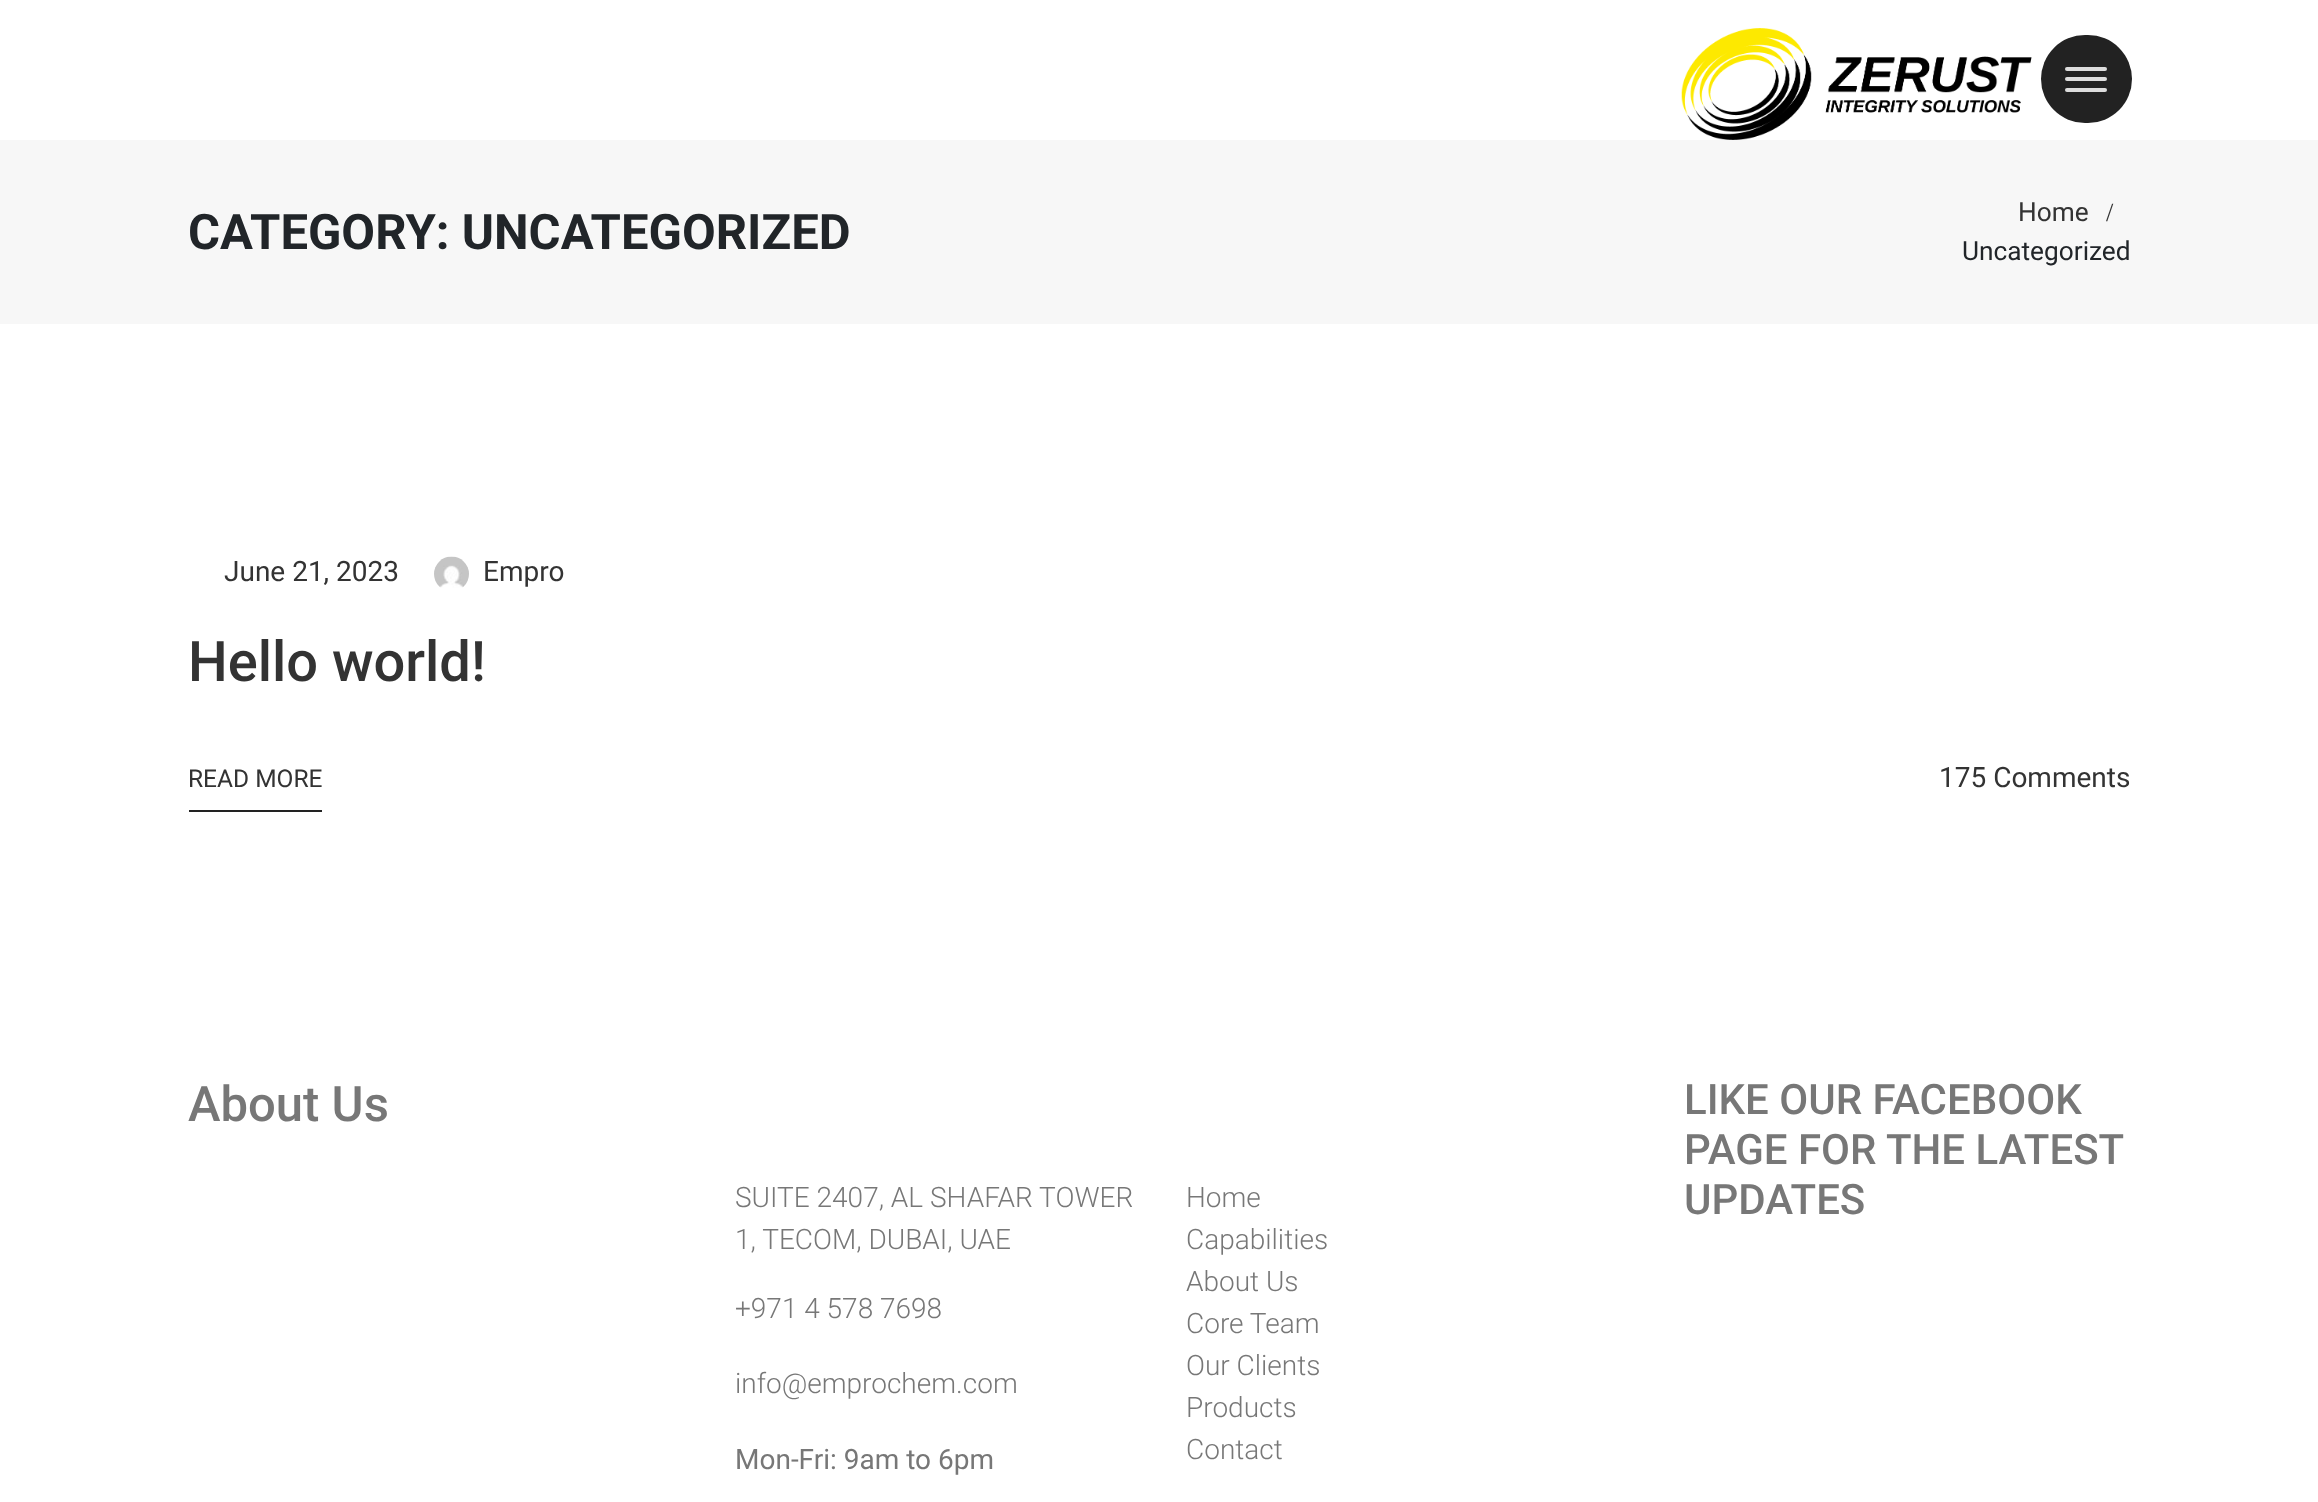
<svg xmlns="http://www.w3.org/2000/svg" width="2318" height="1502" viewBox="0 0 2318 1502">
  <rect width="100%" height="100%" fill="rgb(255,255,255)"/>
  <image x="1681" y="28" width="351" height="112" href="pic1.png"/>
  <rect x="2041" y="35" width="91" height="88" rx="44" fill="rgb(34,34,34)"/>
  <rect x="2065" y="67" width="42" height="4" rx="2" fill="rgb(221,221,221)"/>
  <rect x="2065" y="77" width="42" height="4" rx="2" fill="rgb(221,221,221)"/>
  <rect x="2065" y="88" width="42" height="4" rx="2" fill="rgb(221,221,221)"/>
  <rect x="0" y="140" width="2318" height="184" fill="rgb(247,247,247)"/>
  <text x="188" y="249" font-family="Roboto" font-size="49" font-weight="bold" fill="rgb(33,37,41)">CATEGORY: UNCATEGORIZED</text>
  <text x="2018" y="221" font-family="Roboto" font-size="26.25" fill="rgb(51,51,51)">Home</text>
  <text x="2106" y="221" font-family="Liberation Serif" font-size="26.25" fill="rgb(51,51,51)">/</text>
  <text x="1962" y="260" font-family="Roboto" font-size="26.25" fill="rgb(33,37,41)">Uncategorized</text>
  <text x="224" y="581" font-family="Roboto" font-size="28" fill="rgb(51,51,51)">June 21, 2023</text>
  <image x="434" y="556" width="35" height="32" href="pic2.png"/>
  <text x="483" y="581" font-family="Roboto" font-size="28" fill="rgb(51,51,51)">Empro</text>
  <text x="188" y="681" font-family="Roboto" font-size="56" font-weight="500" fill="rgb(51,51,51)">Hello world!</text>
  <text x="188" y="787" font-family="Roboto" font-size="24.5" fill="rgb(51,51,51)">READ MORE</text>
  <rect x="189" y="810" width="133" height="2" fill="rgb(34,34,34)"/>
  <text x="1939" y="787" font-family="Roboto" font-size="28" fill="rgb(51,51,51)">175 Comments</text>
  <text x="188" y="1121" font-family="Roboto" font-size="49" font-weight="500" fill="rgb(119,119,119)">About Us</text>
  <g font-family="Roboto" font-size="42" font-weight="500" fill="rgb(119,119,119)">
    <text>
      <tspan x="1684" y="1114">LIKE OUR FACEBOOK</tspan>
      <tspan x="1684" y="1164">PAGE FOR THE LATEST</tspan>
      <tspan x="1684" y="1214">UPDATES</tspan>
    </text>
  </g>
  <g font-family="Roboto" font-size="28" font-weight="300" fill="rgb(119,119,119)">
    <text>
      <tspan x="735" y="1207">SUITE 2407, AL SHAFAR TOWER</tspan>
      <tspan x="735" y="1249">1, TECOM, DUBAI, UAE</tspan>
    </text>
    <text x="735" y="1318">+971 4 578 7698</text>
    <text x="735" y="1393">info@emprochem.com</text>
  </g>
  <text x="735" y="1469" font-family="Roboto" font-size="28" fill="rgb(119,119,119)">Mon-Fri: 9am to 6pm</text>
  <g font-family="Roboto" font-size="28" font-weight="300" fill="rgb(119,119,119)">
    <text>
      <tspan x="1186" y="1207">Home</tspan>
      <tspan x="1186" y="1249">Capabilities</tspan>
      <tspan x="1186" y="1291">About Us</tspan>
      <tspan x="1186" y="1333">Core Team</tspan>
      <tspan x="1186" y="1375">Our Clients</tspan>
      <tspan x="1186" y="1417">Products</tspan>
      <tspan x="1186" y="1459">Contact</tspan>
    </text>
  </g>
</svg>
